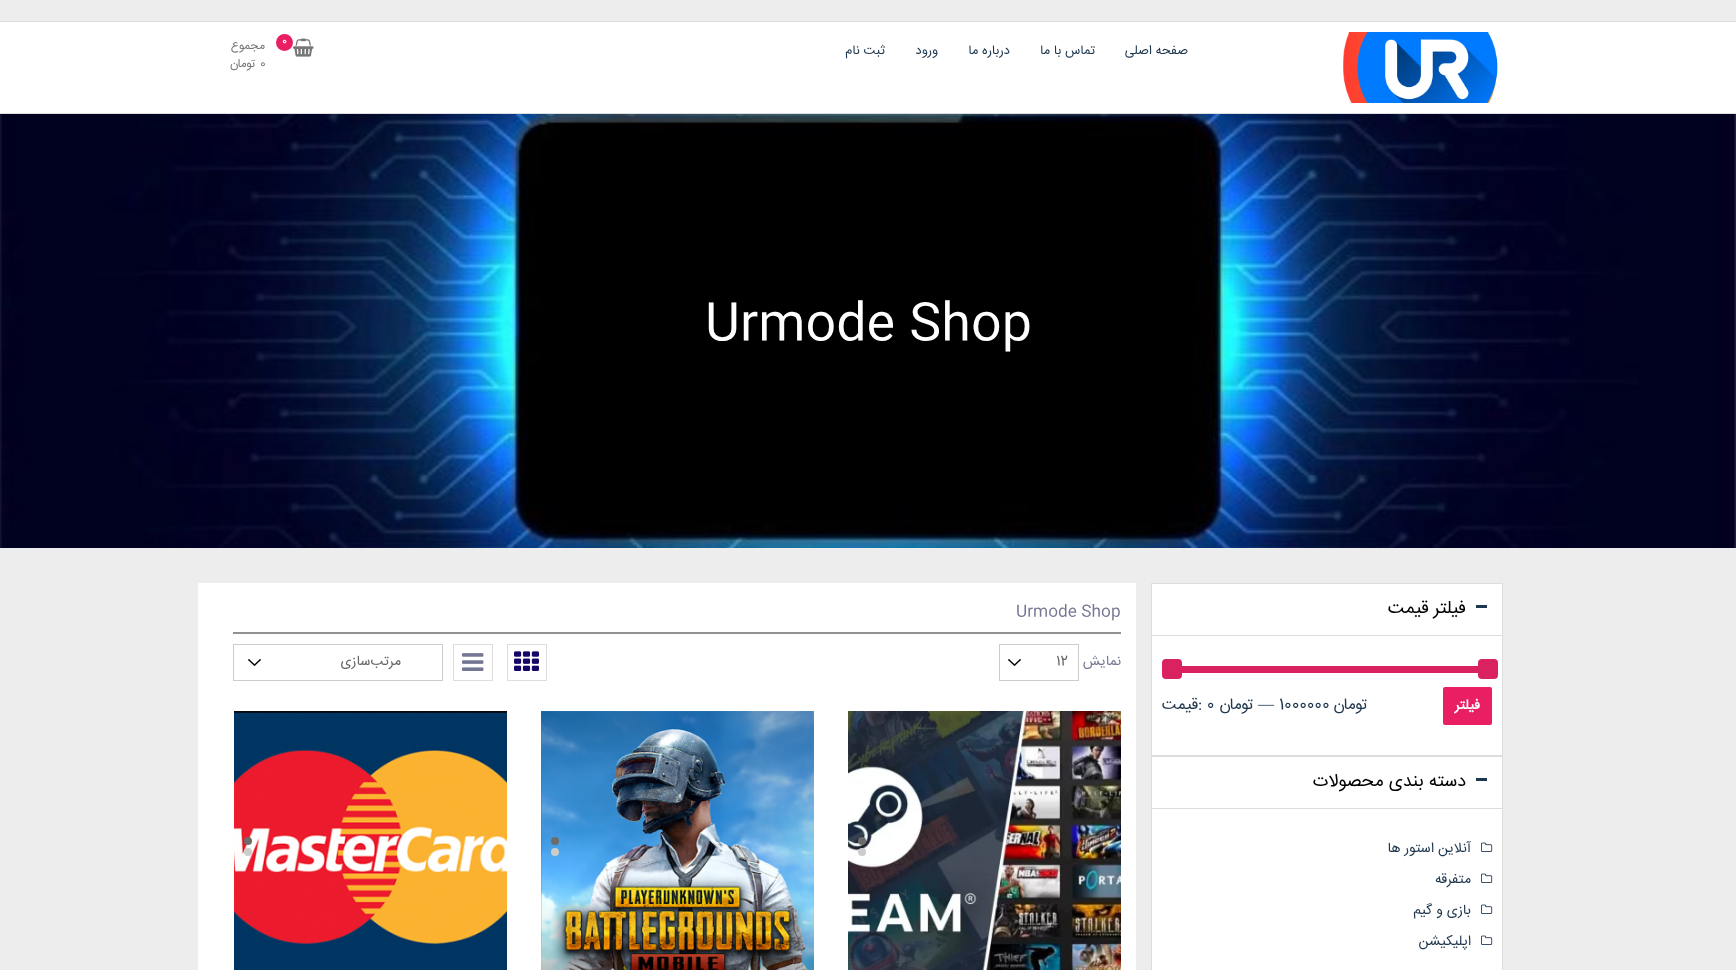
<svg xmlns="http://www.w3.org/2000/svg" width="1736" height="970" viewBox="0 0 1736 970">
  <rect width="100%" height="100%" fill="rgb(237,237,237)"/>
  <rect x="0" y="22" width="1736" height="91" fill="rgb(255,255,255)"/>
  <rect x="0" y="21" width="1736" height="1" fill="rgb(221,221,221)"/>
  <rect x="0" y="113" width="1736" height="1" fill="rgb(221,221,221)"/>
  <image x="1343" y="32" width="155" height="71" href="pic1.png"/>
  <g font-family="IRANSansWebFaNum" font-size="13" direction="rtl" fill="rgb(30,54,78)">
    <text x="1188" y="54">صفحه اصلی</text>
    <text x="1095" y="54">تماس با ما</text>
    <text x="1010" y="54">درباره ما</text>
    <text x="938" y="54">ورود</text>
    <text x="885" y="54">ثبت نام</text>
  </g>
  <image x="293" y="38" width="21" height="19" href="pic2.png"/>
  <circle cx="284.5" cy="42.5" r="8.5" fill="rgb(233,30,99)"/>
  <text x="282" y="44" font-family="IRANSansWebFaNum" font-size="10" font-weight="bold" fill="rgb(255,255,255)">0</text>
  <text x="265" y="49" font-family="IRANSansWebFaNum" font-size="12" direction="rtl" fill="rgb(118,118,118)">مجموع</text>
  <text x="260" y="67" font-family="IRANSansWebFaNum" font-size="12" fill="rgb(118,118,118)">0</text>
  <text x="256" y="67" font-family="IRANSansWebFaNum" font-size="12" direction="rtl" fill="rgb(118,118,118)">تومان</text>
  <image x="0" y="114" width="1736" height="434" href="pic3.png"/>
  <text x="705" y="338" font-family="IRANSansWebFaNum" font-size="50" fill="rgb(255,255,255)">Urmode Shop</text>
  <rect x="1151.5" y="583.5" width="351" height="172" fill="rgb(255,255,255)" stroke="rgb(221,221,221)"/>
  <rect x="1476" y="605" width="11" height="3" fill="rgb(30,54,78)"/>
  <text x="1466" y="613" font-family="IRANSansWebFaNum" font-size="18" direction="rtl" fill="rgb(0,0,0)">فیلتر قیمت</text>
  <rect x="1152" y="635" width="350" height="1" fill="rgb(221,221,221)"/>
  <rect x="1182" y="666" width="303" height="7" fill="rgb(218,34,96)"/>
  <rect x="1478" y="659" width="20" height="20" rx="4" fill="rgb(218,34,96)"/>
  <rect x="1162" y="659" width="20" height="20" rx="4" fill="rgb(218,34,96)"/>
  <rect x="1443" y="687" width="49" height="38" rx="2" fill="rgb(233,30,99)"/>
  <text x="1480" y="709" font-family="IRANSansWebFaNum" font-size="14" font-weight="bold" direction="rtl" fill="rgb(255,255,255)">فیلتر</text>
  <text x="1368" y="709" font-family="IRANSansWebFaNum" font-size="16" direction="rtl" fill="rgb(30,54,78)">تومان</text>
  <text x="1279" y="709" font-family="IRANSansWebFaNum" font-size="16" fill="rgb(30,54,78)">1000000</text>
  <text x="1258" y="709" font-family="Liberation Serif" font-size="16" fill="rgb(30,54,78)">—</text>
  <text x="1254" y="709" font-family="IRANSansWebFaNum" font-size="16" direction="rtl" fill="rgb(30,54,78)">تومان</text>
  <text x="1198" y="709" font-family="IRANSansWebFaNum" font-size="16" fill="rgb(30,54,78)">: 0</text>
  <text x="1198" y="709" font-family="IRANSansWebFaNum" font-size="16" direction="rtl" fill="rgb(30,54,78)">قیمت</text>
  <rect x="1151.5" y="756.5" width="351" height="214" fill="rgb(255,255,255)" stroke="rgb(221,221,221)"/>
  <rect x="1476" y="778" width="11" height="3" fill="rgb(30,54,78)"/>
  <text x="1466" y="786" font-family="IRANSansWebFaNum" font-size="18" direction="rtl" fill="rgb(0,0,0)">دسته بندی محصولات</text>
  <rect x="1152" y="808" width="350" height="1" fill="rgb(221,221,221)"/>
  <image x="1481" y="842" width="12" height="10" href="pic4.png"/>
  <text x="1471" y="852" font-family="IRANSansWebFaNum" font-size="14" direction="rtl" fill="rgb(30,54,78)">آنلاین استور ها</text>
  <image x="1481" y="873" width="12" height="10" href="pic4.png"/>
  <text x="1471" y="883" font-family="IRANSansWebFaNum" font-size="14" direction="rtl" fill="rgb(30,54,78)">متفرقه</text>
  <image x="1481" y="904" width="12" height="10" href="pic4.png"/>
  <text x="1471" y="914" font-family="IRANSansWebFaNum" font-size="14" direction="rtl" fill="rgb(30,54,78)">بازی و گیم</text>
  <image x="1481" y="935" width="12" height="10" href="pic4.png"/>
  <text x="1471" y="945" font-family="IRANSansWebFaNum" font-size="14" direction="rtl" fill="rgb(30,54,78)">اپلیکیشن</text>
  <rect x="198" y="583" width="938" height="387" fill="rgb(255,255,255)"/>
  <rect x="233" y="632" width="888" height="2" fill="rgb(145,145,147)"/>
  <text x="1016" y="616" font-family="IRANSansWebFaNum" font-size="16" fill="rgb(116,119,148)">Urmode Shop</text>
  <text x="1121" y="665" font-family="IRANSansWebFaNum" font-size="14" direction="rtl" fill="rgb(116,119,148)">نمایش</text>
  <image x="1008" y="659" width="13" height="7" href="pic5.png"/>
  <rect x="999.5" y="644.5" width="79" height="36" fill="none" stroke="rgb(204,204,204)"/>
  <text x="1056" y="665" font-family="IRANSansWebFaNum" font-size="14" fill="rgb(102,102,102)">12</text>
  <rect x="507.5" y="644.5" width="39" height="36" fill="none" stroke="rgb(221,221,221)"/>
  <image x="514" y="651" width="25" height="20" href="pic6.png"/>
  <rect x="453.5" y="644.5" width="39" height="36" fill="none" stroke="rgb(221,221,221)"/>
  <image x="462" y="653" width="22" height="18" href="pic7.png"/>
  <image x="248" y="659" width="13" height="7" href="pic5.png"/>
  <rect x="233.5" y="644.5" width="209" height="36" fill="none" stroke="rgb(204,204,204)"/>
  <text x="401" y="665" font-family="IRANSansWebFaNum" font-size="14" direction="rtl" fill="rgb(102,102,102)">مرتب‌سازی</text>
  <image x="848" y="711" width="273" height="259" href="pic8.png"/>
  <circle cx="862" cy="841" r="4" fill="rgb(108,108,108)"/>
  <circle cx="862" cy="852" r="4" fill="rgb(204,204,204)"/>
  <image x="541" y="711" width="273" height="259" href="pic9.png"/>
  <circle cx="555" cy="841" r="4" fill="rgb(108,108,108)"/>
  <circle cx="555" cy="852" r="4" fill="rgb(204,204,204)"/>
  <image x="234" y="711" width="273" height="259" href="pic10.png"/>
  <circle cx="248" cy="841" r="4" fill="rgb(108,108,108)"/>
  <circle cx="248" cy="852" r="4" fill="rgb(204,204,204)"/>
</svg>
